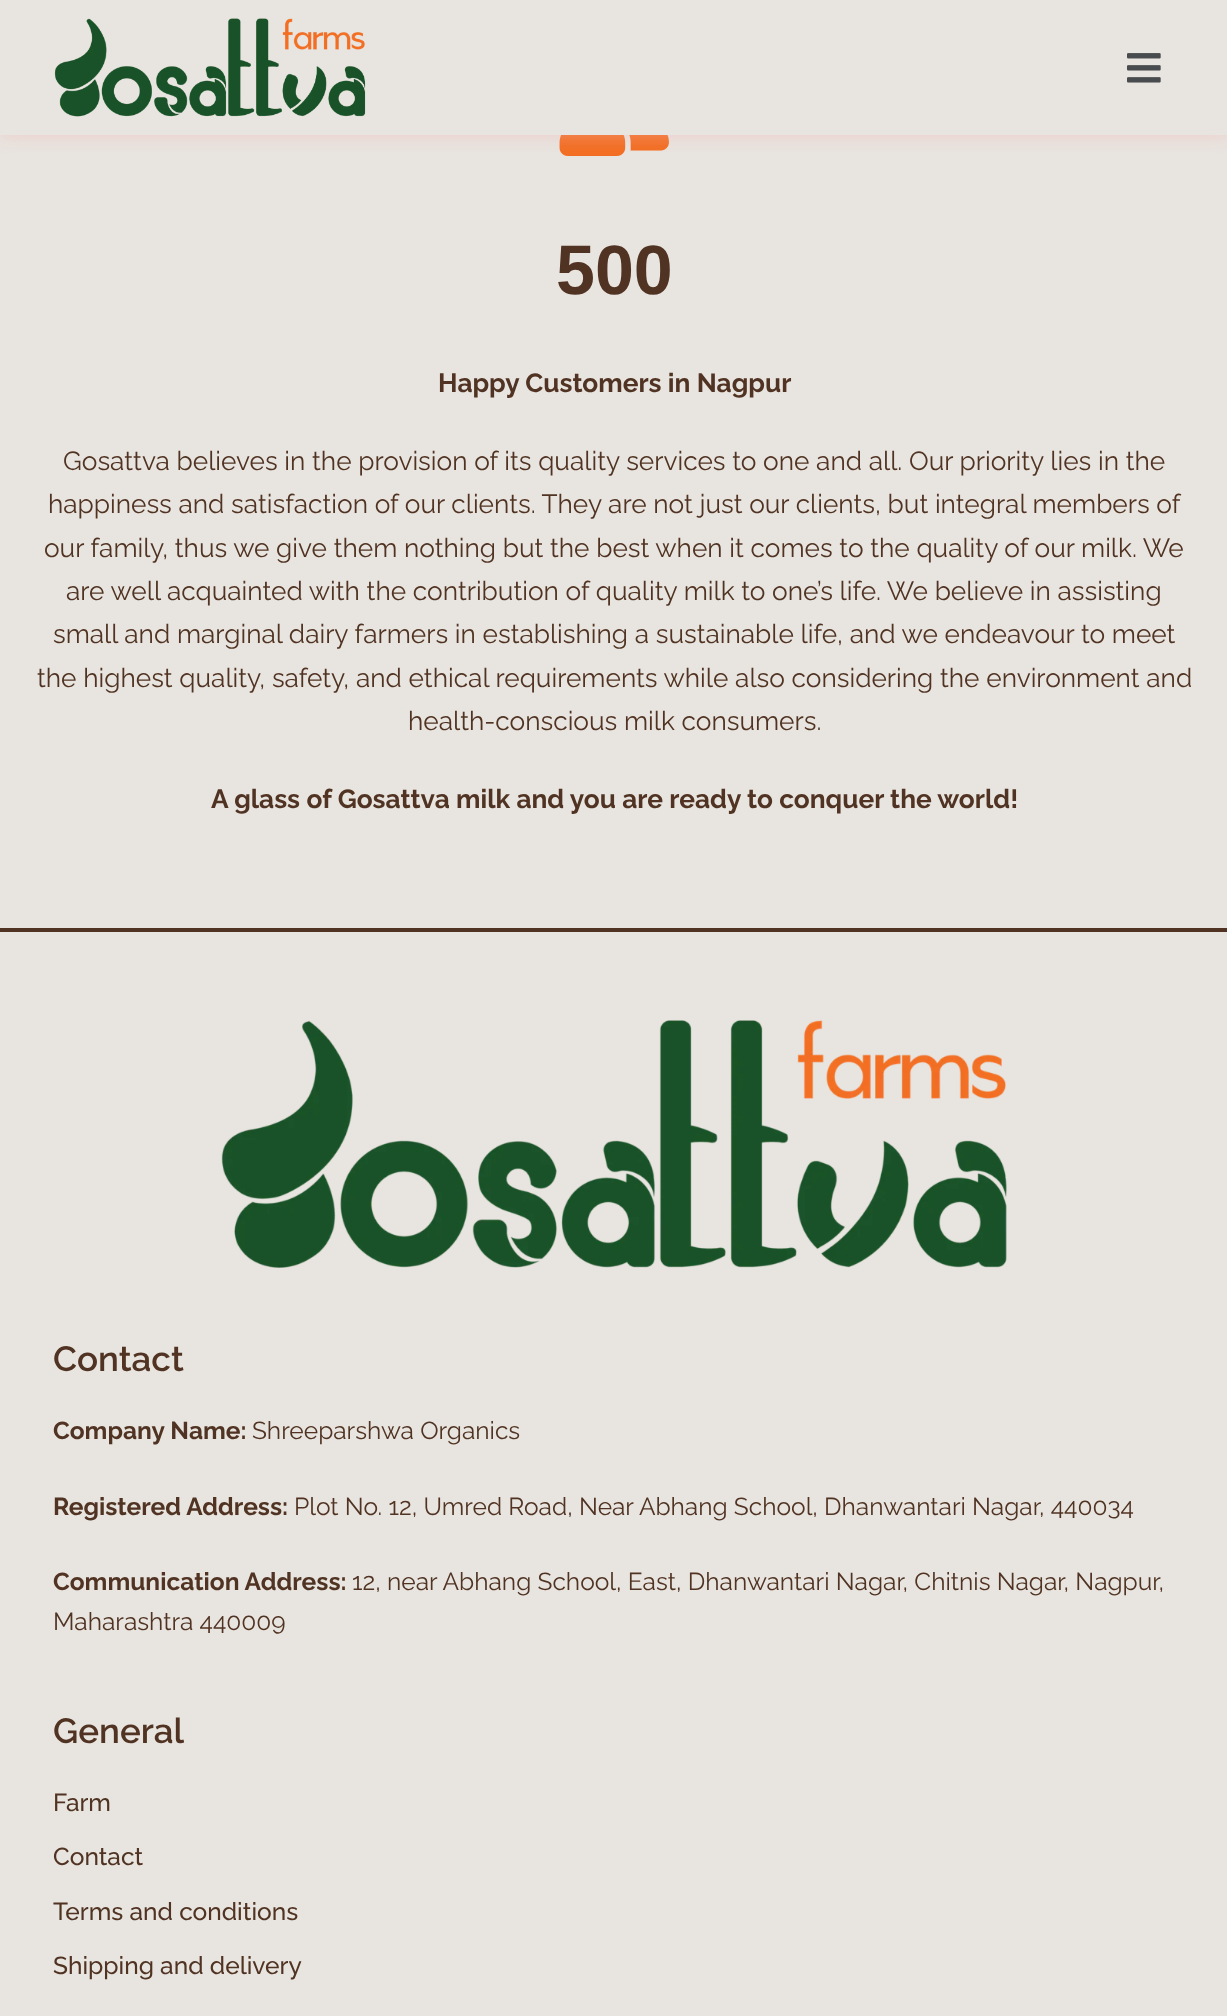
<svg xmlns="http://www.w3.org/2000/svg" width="1227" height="2016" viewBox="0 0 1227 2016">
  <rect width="100%" height="100%" fill="rgb(232,228,223)"/>
  <image x="559" y="135" width="110" height="21" href="pic3.png"/>
  <rect x="0" y="0" width="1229" height="135" fill="rgba(246,181,181,0.5)" filter="blur(9px)"/>
  <rect x="0" y="0" width="1227" height="135" fill="rgb(232,228,223)"/>
  <image x="54" y="18" width="312" height="99" href="pic1.png"/>
  <image x="1127" y="53" width="34" height="30" href="pic2.png"/>
  <text x="556" y="294" font-family="Liberation Sans" font-size="70" font-weight="bold" fill="rgb(80,51,34)">500</text>
  <text x="438" y="392" font-family="Raleway" font-size="26.25" font-weight="bold" fill="rgb(80,51,34)">Happy Customers in Nagpur</text>
  <g font-family="Raleway" font-size="26.25" fill="rgb(80,51,34)">
    <text x="63" y="470">Gosattva believes in the provision of its quality services to one and all. Our priority lies in the</text>
    <text x="48" y="513">happiness and satisfaction of our clients. They are not just our clients, but integral members of</text>
    <text x="44" y="557">our family, thus we give them nothing but the best when it comes to the quality of our milk. We</text>
    <text x="66" y="600">are well acquainted with the contribution of quality milk to one’s life. We believe in assisting</text>
    <text x="53" y="643">small and marginal dairy farmers in establishing a sustainable life, and we endeavour to meet</text>
    <text x="37" y="687">the highest quality, safety, and ethical requirements while also considering the environment and</text>
    <text x="408" y="730">health-conscious milk consumers.</text>
  </g>
  <text x="211" y="808" font-family="Raleway" font-size="26.25" font-weight="bold" fill="rgb(80,51,34)">A glass of Gosattva milk and you are ready to conquer the world!</text>
  <rect x="0" y="928" width="1227" height="4" fill="rgb(80,51,34)"/>
  <image x="221" y="1020" width="786" height="248" href="pic4.png"/>
  <text x="53" y="1371" font-family="Raleway" font-size="35" font-weight="600" fill="rgb(80,51,34)">Contact</text>
  <text x="53" y="1439" font-family="Raleway" font-size="24.5" font-weight="bold" fill="rgb(80,51,34)">Company Name:</text>
  <text x="252" y="1439" font-family="Raleway" font-size="24.5" fill="rgb(80,51,34)">Shreeparshwa Organics</text>
  <text x="53" y="1515" font-family="Raleway" font-size="24.5" font-weight="bold" fill="rgb(80,51,34)">Registered Address:</text>
  <text x="294" y="1515" font-family="Raleway" font-size="24.5" fill="rgb(80,51,34)">Plot No. 12, Umred Road, Near Abhang School, Dhanwantari Nagar, 440034</text>
  <text x="53" y="1590" font-family="Raleway" font-size="24.5" font-weight="bold" fill="rgb(80,51,34)">Communication Address:</text>
  <g font-family="Raleway" font-size="24.5" fill="rgb(80,51,34)">
    <text x="352" y="1590">12, near Abhang School, East, Dhanwantari Nagar, Chitnis Nagar, Nagpur,</text>
    <text x="53" y="1630">Maharashtra 440009</text>
  </g>
  <text x="53" y="1743" font-family="Raleway" font-size="35" font-weight="600" fill="rgb(80,51,34)">General</text>
  <g font-family="Raleway" font-size="24.5" font-weight="500" fill="rgb(80,51,34)">
    <text x="53" y="1811">Farm</text>
    <text x="53" y="1865">Contact</text>
    <text x="53" y="1920">Terms and conditions</text>
    <text x="53" y="1974">Shipping and delivery</text>
  </g>
</svg>
